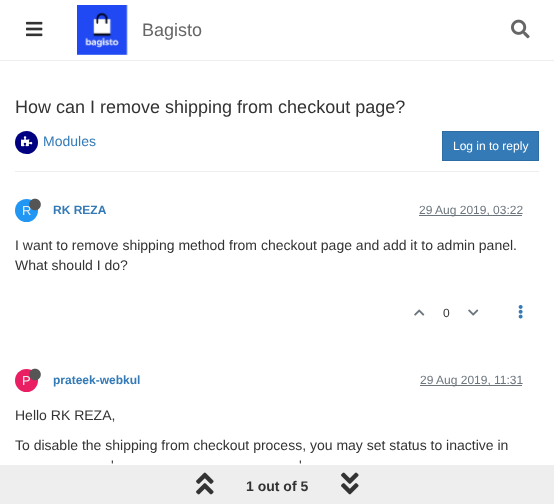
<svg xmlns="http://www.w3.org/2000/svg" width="554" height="504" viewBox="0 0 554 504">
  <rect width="100%" height="100%" fill="rgb(255,255,255)"/>
  <rect x="0" y="60" width="554" height="1" fill="rgb(238,238,238)"/>
  <image x="26" y="21" width="17" height="16" href="pic1.png"/>
  <image x="77" y="5" width="51" height="50" href="pic2.png"/>
  <text x="142" y="36" font-family="Liberation Sans" font-size="18" fill="rgb(102,102,102)">Bagisto</text>
  <image x="511" y="19" width="19" height="20" href="pic3.png"/>
  <text x="15" y="113" font-family="Liberation Sans" font-size="18" fill="rgb(51,51,51)">How can I remove shipping from checkout page?</text>
  <rect x="15" y="171" width="524" height="1" fill="rgb(238,238,238)"/>
  <circle cx="26.5" cy="142.5" r="11.5" fill="rgb(0,0,128)"/>
  <image x="21" y="136" width="12" height="11" href="pic4.png"/>
  <text x="43" y="146" font-family="Liberation Sans" font-size="14" fill="rgb(51,122,183)">Modules</text>
  <rect x="442.5" y="131.5" width="96" height="29" fill="rgb(51,122,183)" stroke="rgb(46,109,164)"/>
  <text x="453" y="150" font-family="Liberation Sans" font-size="12" fill="rgb(255,255,255)">Log in to reply</text>
  <circle cx="26.5" cy="210.5" r="11.5" fill="rgb(33,150,243)"/>
  <text x="22" y="215" font-family="Liberation Sans" font-size="13" fill="rgb(238,238,238)">R</text>
  <image x="29" y="198" width="12" height="13" href="pic5.png"/>
  <text x="53" y="214" font-family="Liberation Sans" font-size="12" font-weight="bold" fill="rgb(51,122,183)">RK REZA</text>
  <rect x="419" y="215" width="103" height="1" fill="rgb(108,117,125)"/>
  <text x="419" y="214" font-family="Liberation Sans" font-size="12" fill="rgb(108,117,125)">29 Aug 2019, 03:22</text>
  <g font-family="Liberation Sans" font-size="14" fill="rgb(51,51,51)">
    <text>
      <tspan x="15" y="250">I want to remove shipping method from checkout page and add it to admin panel.</tspan>
      <tspan x="15" y="270">What should I do?</tspan>
    </text>
  </g>
  <image x="414" y="309" width="11" height="7" href="pic6.png"/>
  <text x="443" y="317" font-family="Liberation Sans" font-size="12" fill="rgb(51,51,51)">0</text>
  <image x="468" y="309" width="11" height="7" href="pic7.png"/>
  <image x="518" y="305" width="5" height="14" href="pic8.png"/>
  <circle cx="26.5" cy="380.5" r="11.5" fill="rgb(233,30,99)"/>
  <text x="22" y="385" font-family="Liberation Sans" font-size="13" fill="rgb(238,238,238)">P</text>
  <image x="29" y="368" width="12" height="13" href="pic9.png"/>
  <text x="53" y="384" font-family="Liberation Sans" font-size="12" font-weight="bold" fill="rgb(51,122,183)">prateek-webkul</text>
  <rect x="420" y="385" width="102" height="1" fill="rgb(108,117,125)"/>
  <text x="420" y="384" font-family="Liberation Sans" font-size="12" fill="rgb(108,117,125)">29 Aug 2019, 11:31</text>
  <g font-family="Liberation Sans" font-size="14" fill="rgb(51,51,51)">
    <text x="15" y="420">Hello RK REZA,</text>
    <text x="15" y="450">To disable the shipping from checkout process, you may set status to inactive in</text>
    <text x="111" y="470">'</text>
    <text x="299" y="470">'</text>
  </g>
  <rect x="0" y="465" width="554" height="39" fill="rgb(238,238,238)"/>
  <image x="196" y="472" width="18" height="23" href="pic10.png"/>
  <text x="246" y="491" font-family="Liberation Sans" font-size="14" font-weight="bold" fill="rgb(51,51,51)">1 out of 5</text>
  <image x="341" y="472" width="18" height="23" href="pic11.png"/>
</svg>
